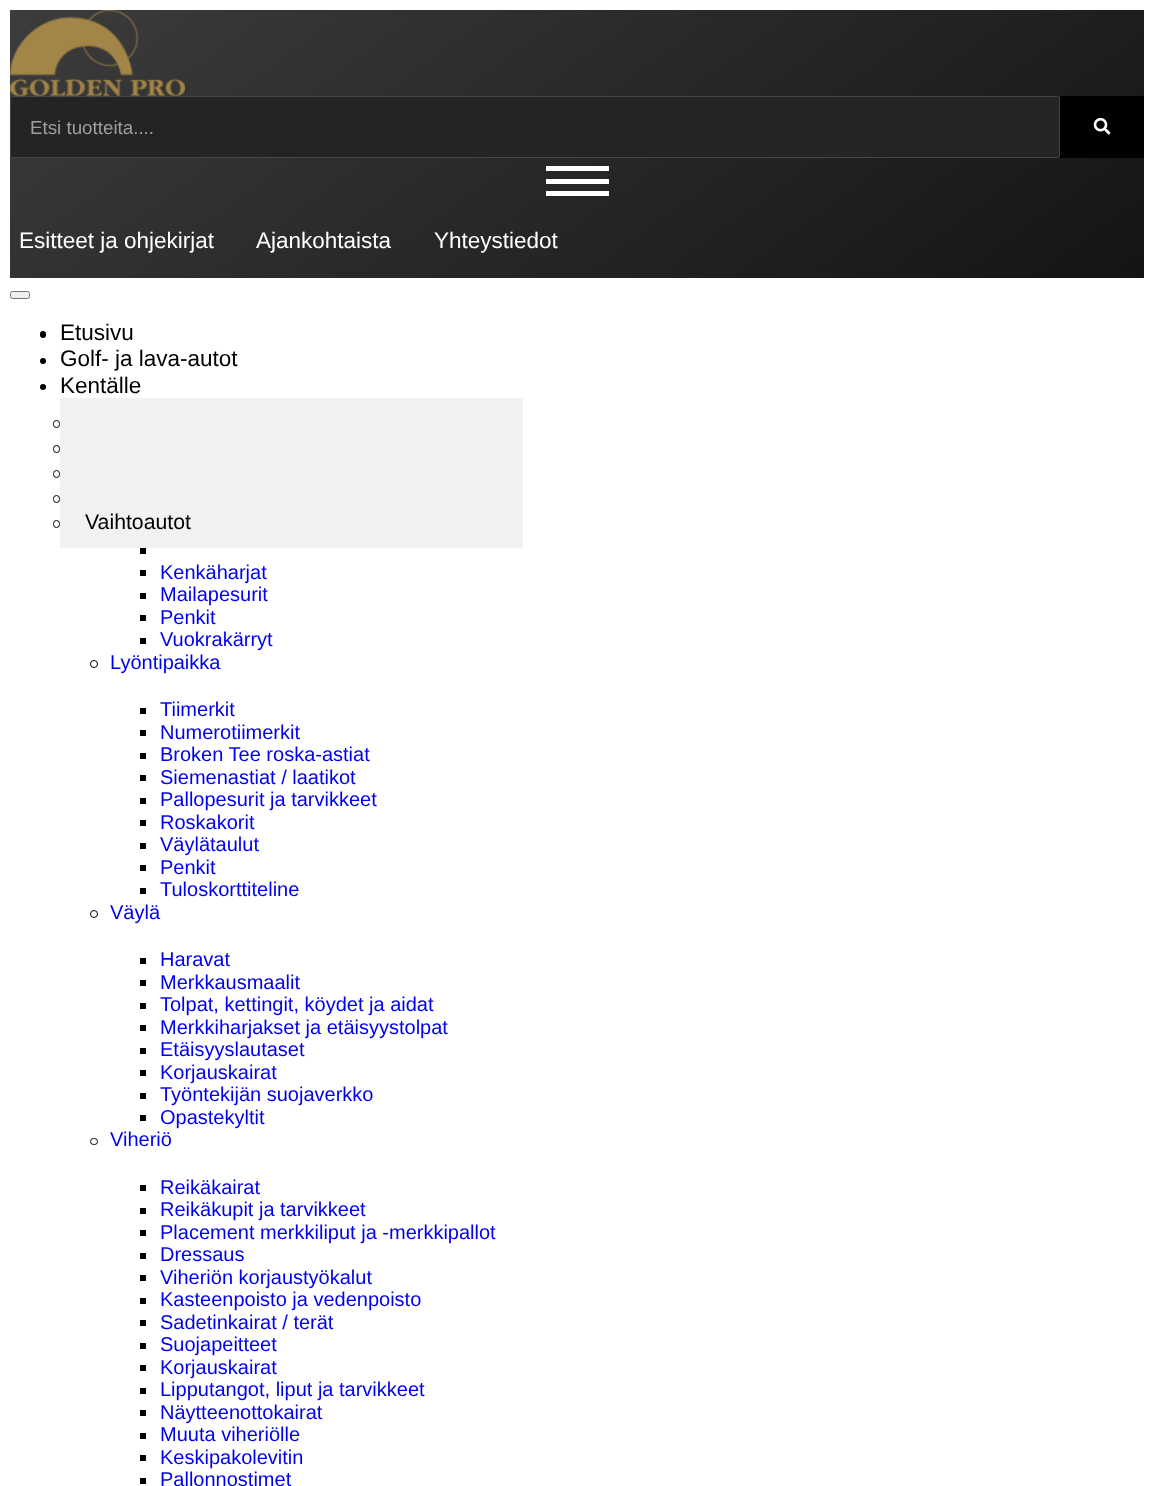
<svg xmlns="http://www.w3.org/2000/svg" width="1153" height="1486" viewBox="0 0 1153 1486">
  <defs>
    <linearGradient id="g1" gradientUnits="userSpaceOnUse" x1="317" y1="-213" x2="836" y2="501"><stop offset="0" stop-color="rgb(60,60,60)"/><stop offset="1" stop-color="rgb(20,20,20)"/></linearGradient>
  </defs>
  <rect width="100%" height="100%" fill="rgb(255,255,255)"/>
  <rect x="10" y="10" width="1134" height="268" fill="url(#g1)"/>
  <rect x="10.5" y="96.5" width="1049" height="61" rx="2" fill="rgb(36,36,36)" stroke="rgb(69,69,69)"/>
  <image x="10" y="10" width="175" height="87" href="pic1.png"/>
  <text x="30" y="134" font-family="Liberation Sans" font-size="18.75" fill="rgb(158,158,158)">Etsi tuotteita....</text>
  <rect x="1060" y="96" width="84" height="62" fill="rgb(0,0,0)"/>
  <image x="1093" y="117" width="18" height="18" href="pic2.png"/>
  <rect x="546" y="166" width="63" height="5" fill="rgb(255,255,255)"/>
  <rect x="546" y="179" width="63" height="5" fill="rgb(255,255,255)"/>
  <rect x="546" y="191" width="63" height="5" fill="rgb(255,255,255)"/>
  <g font-family="Liberation Sans" font-size="22.5" fill="rgb(255,255,255)">
    <text x="19" y="248">Esitteet ja ohjekirjat</text>
    <text x="256" y="248">Ajankohtaista</text>
    <text x="434" y="248">Yhteystiedot</text>
  </g>
  <rect x="10.5" y="291.5" width="19" height="7" rx="2" fill="rgb(239,239,239)" stroke="rgb(118,118,118)"/>
  <rect x="40" y="331" width="6" height="7" rx="3" fill="rgb(0,0,0)"/>
  <text x="60" y="340" font-family="Liberation Sans" font-size="22.5" fill="rgb(0,0,0)">Etusivu</text>
  <circle cx="43" cy="361" r="3" fill="rgb(0,0,0)"/>
  <text x="60" y="366" font-family="Liberation Sans" font-size="22.5" fill="rgb(0,0,0)">Golf- ja lava-autot</text>
  <rect x="60" y="398" width="463" height="150" fill="rgb(241,241,241)"/>
  <rect x="53.5" y="420.5" width="6" height="7" rx="3" fill="none" stroke="rgb(0,0,0)"/>
  <rect x="53.5" y="445.5" width="6" height="7" rx="3" fill="none" stroke="rgb(0,0,0)"/>
  <rect x="53.5" y="470.5" width="6" height="7" rx="3" fill="none" stroke="rgb(0,0,0)"/>
  <rect x="53.5" y="495.5" width="6" height="7" rx="3" fill="none" stroke="rgb(0,0,0)"/>
  <rect x="53.5" y="520.5" width="6" height="7" rx="3" fill="none" stroke="rgb(0,0,0)"/>
  <text x="85" y="529" font-family="Liberation Sans" font-size="21.25" fill="rgb(0,0,0)">Vaihtoautot</text>
  <circle cx="43" cy="387" r="3" fill="rgb(0,0,0)"/>
  <text x="60" y="393" font-family="Liberation Sans" font-size="22.5" fill="rgb(0,0,0)">Kentälle</text>
  <rect x="140" y="548" width="6" height="6" fill="rgb(0,0,0)"/>
  <rect x="140" y="570" width="6" height="6" fill="rgb(0,0,0)"/>
  <text x="160" y="579" font-family="Liberation Sans" font-size="20" fill="rgb(0,0,238)">Kenkäharjat</text>
  <rect x="140" y="593" width="6" height="6" fill="rgb(0,0,0)"/>
  <text x="160" y="601" font-family="Liberation Sans" font-size="20" fill="rgb(0,0,238)">Mailapesurit</text>
  <rect x="140" y="615" width="6" height="6" fill="rgb(0,0,0)"/>
  <text x="160" y="624" font-family="Liberation Sans" font-size="20" fill="rgb(0,0,238)">Penkit</text>
  <rect x="140" y="638" width="6" height="6" fill="rgb(0,0,0)"/>
  <text x="160" y="646" font-family="Liberation Sans" font-size="20" fill="rgb(0,0,238)">Vuokrakärryt</text>
  <circle cx="94" cy="664" r="3.5" fill="none" stroke="rgb(0,0,0)"/>
  <text x="110" y="669" font-family="Liberation Sans" font-size="20" fill="rgb(0,0,238)">Lyöntipaikka</text>
  <rect x="140" y="708" width="6" height="6" fill="rgb(0,0,0)"/>
  <text x="160" y="716" font-family="Liberation Sans" font-size="20" fill="rgb(0,0,238)">Tiimerkit</text>
  <rect x="140" y="730" width="6" height="6" fill="rgb(0,0,0)"/>
  <text x="160" y="739" font-family="Liberation Sans" font-size="20" fill="rgb(0,0,238)">Numerotiimerkit</text>
  <rect x="140" y="753" width="6" height="6" fill="rgb(0,0,0)"/>
  <text x="160" y="761" font-family="Liberation Sans" font-size="20" fill="rgb(0,0,238)">Broken Tee roska-astiat</text>
  <rect x="140" y="775" width="6" height="6" fill="rgb(0,0,0)"/>
  <text x="160" y="784" font-family="Liberation Sans" font-size="20" fill="rgb(0,0,238)">Siemenastiat / laatikot</text>
  <rect x="140" y="798" width="6" height="6" fill="rgb(0,0,0)"/>
  <text x="160" y="806" font-family="Liberation Sans" font-size="20" fill="rgb(0,0,238)">Pallopesurit ja tarvikkeet</text>
  <rect x="140" y="820" width="6" height="6" fill="rgb(0,0,0)"/>
  <text x="160" y="829" font-family="Liberation Sans" font-size="20" fill="rgb(0,0,238)">Roskakorit</text>
  <rect x="140" y="843" width="6" height="6" fill="rgb(0,0,0)"/>
  <text x="160" y="851" font-family="Liberation Sans" font-size="20" fill="rgb(0,0,238)">Väylätaulut</text>
  <rect x="140" y="865" width="6" height="6" fill="rgb(0,0,0)"/>
  <text x="160" y="874" font-family="Liberation Sans" font-size="20" fill="rgb(0,0,238)">Penkit</text>
  <rect x="140" y="888" width="6" height="6" fill="rgb(0,0,0)"/>
  <text x="160" y="896" font-family="Liberation Sans" font-size="20" fill="rgb(0,0,238)">Tuloskorttiteline</text>
  <circle cx="94" cy="914" r="3.5" fill="none" stroke="rgb(0,0,0)"/>
  <text x="110" y="919" font-family="Liberation Sans" font-size="20" fill="rgb(0,0,238)">Väylä</text>
  <rect x="140" y="958" width="6" height="6" fill="rgb(0,0,0)"/>
  <text x="160" y="966" font-family="Liberation Sans" font-size="20" fill="rgb(0,0,238)">Haravat</text>
  <rect x="140" y="980" width="6" height="6" fill="rgb(0,0,0)"/>
  <text x="160" y="989" font-family="Liberation Sans" font-size="20" fill="rgb(0,0,238)">Merkkausmaalit</text>
  <rect x="140" y="1003" width="6" height="6" fill="rgb(0,0,0)"/>
  <text x="160" y="1011" font-family="Liberation Sans" font-size="20" fill="rgb(0,0,238)">Tolpat, kettingit, köydet ja aidat</text>
  <rect x="140" y="1025" width="6" height="6" fill="rgb(0,0,0)"/>
  <text x="160" y="1034" font-family="Liberation Sans" font-size="20" fill="rgb(0,0,238)">Merkkiharjakset ja etäisyystolpat</text>
  <rect x="140" y="1048" width="6" height="6" fill="rgb(0,0,0)"/>
  <text x="160" y="1056" font-family="Liberation Sans" font-size="20" fill="rgb(0,0,238)">Etäisyyslautaset</text>
  <rect x="140" y="1070" width="6" height="6" fill="rgb(0,0,0)"/>
  <text x="160" y="1079" font-family="Liberation Sans" font-size="20" fill="rgb(0,0,238)">Korjauskairat</text>
  <rect x="140" y="1093" width="6" height="6" fill="rgb(0,0,0)"/>
  <text x="160" y="1101" font-family="Liberation Sans" font-size="20" fill="rgb(0,0,238)">Työntekijän suojaverkko</text>
  <rect x="140" y="1115" width="6" height="6" fill="rgb(0,0,0)"/>
  <text x="160" y="1124" font-family="Liberation Sans" font-size="20" fill="rgb(0,0,238)">Opastekyltit</text>
  <rect x="90.5" y="1138.5" width="7" height="6" rx="3" fill="none" stroke="rgb(0,0,0)"/>
  <text x="110" y="1146" font-family="Liberation Sans" font-size="20" fill="rgb(0,0,238)">Viheriö</text>
  <rect x="140" y="1185" width="6" height="6" fill="rgb(0,0,0)"/>
  <text x="160" y="1194" font-family="Liberation Sans" font-size="20" fill="rgb(0,0,238)">Reikäkairat</text>
  <rect x="140" y="1208" width="6" height="6" fill="rgb(0,0,0)"/>
  <text x="160" y="1216" font-family="Liberation Sans" font-size="20" fill="rgb(0,0,238)">Reikäkupit ja tarvikkeet</text>
  <rect x="140" y="1230" width="6" height="6" fill="rgb(0,0,0)"/>
  <text x="160" y="1239" font-family="Liberation Sans" font-size="20" fill="rgb(0,0,238)">Placement merkkiliput ja -merkkipallot</text>
  <rect x="140" y="1253" width="6" height="6" fill="rgb(0,0,0)"/>
  <text x="160" y="1261" font-family="Liberation Sans" font-size="20" fill="rgb(0,0,238)">Dressaus</text>
  <rect x="140" y="1275" width="6" height="6" fill="rgb(0,0,0)"/>
  <text x="160" y="1284" font-family="Liberation Sans" font-size="20" fill="rgb(0,0,238)">Viheriön korjaustyökalut</text>
  <rect x="140" y="1298" width="6" height="6" fill="rgb(0,0,0)"/>
  <text x="160" y="1306" font-family="Liberation Sans" font-size="20" fill="rgb(0,0,238)">Kasteenpoisto ja vedenpoisto</text>
  <rect x="140" y="1320" width="6" height="6" fill="rgb(0,0,0)"/>
  <text x="160" y="1329" font-family="Liberation Sans" font-size="20" fill="rgb(0,0,238)">Sadetinkairat / terät</text>
  <rect x="140" y="1343" width="6" height="6" fill="rgb(0,0,0)"/>
  <text x="160" y="1351" font-family="Liberation Sans" font-size="20" fill="rgb(0,0,238)">Suojapeitteet</text>
  <rect x="140" y="1365" width="6" height="6" fill="rgb(0,0,0)"/>
  <text x="160" y="1374" font-family="Liberation Sans" font-size="20" fill="rgb(0,0,238)">Korjauskairat</text>
  <rect x="140" y="1388" width="6" height="6" fill="rgb(0,0,0)"/>
  <text x="160" y="1396" font-family="Liberation Sans" font-size="20" fill="rgb(0,0,238)">Lipputangot, liput ja tarvikkeet</text>
  <rect x="140" y="1410" width="6" height="6" fill="rgb(0,0,0)"/>
  <text x="160" y="1419" font-family="Liberation Sans" font-size="20" fill="rgb(0,0,238)">Näytteenottokairat</text>
  <rect x="140" y="1433" width="6" height="6" fill="rgb(0,0,0)"/>
  <text x="160" y="1441" font-family="Liberation Sans" font-size="20" fill="rgb(0,0,238)">Muuta viheriölle</text>
  <rect x="140" y="1455" width="6" height="6" fill="rgb(0,0,0)"/>
  <text x="160" y="1464" font-family="Liberation Sans" font-size="20" fill="rgb(0,0,238)">Keskipakolevitin</text>
  <rect x="140" y="1478" width="6" height="6" fill="rgb(0,0,0)"/>
  <text x="160" y="1486" font-family="Liberation Sans" font-size="20" fill="rgb(0,0,238)">Pallonnostimet</text>
</svg>
